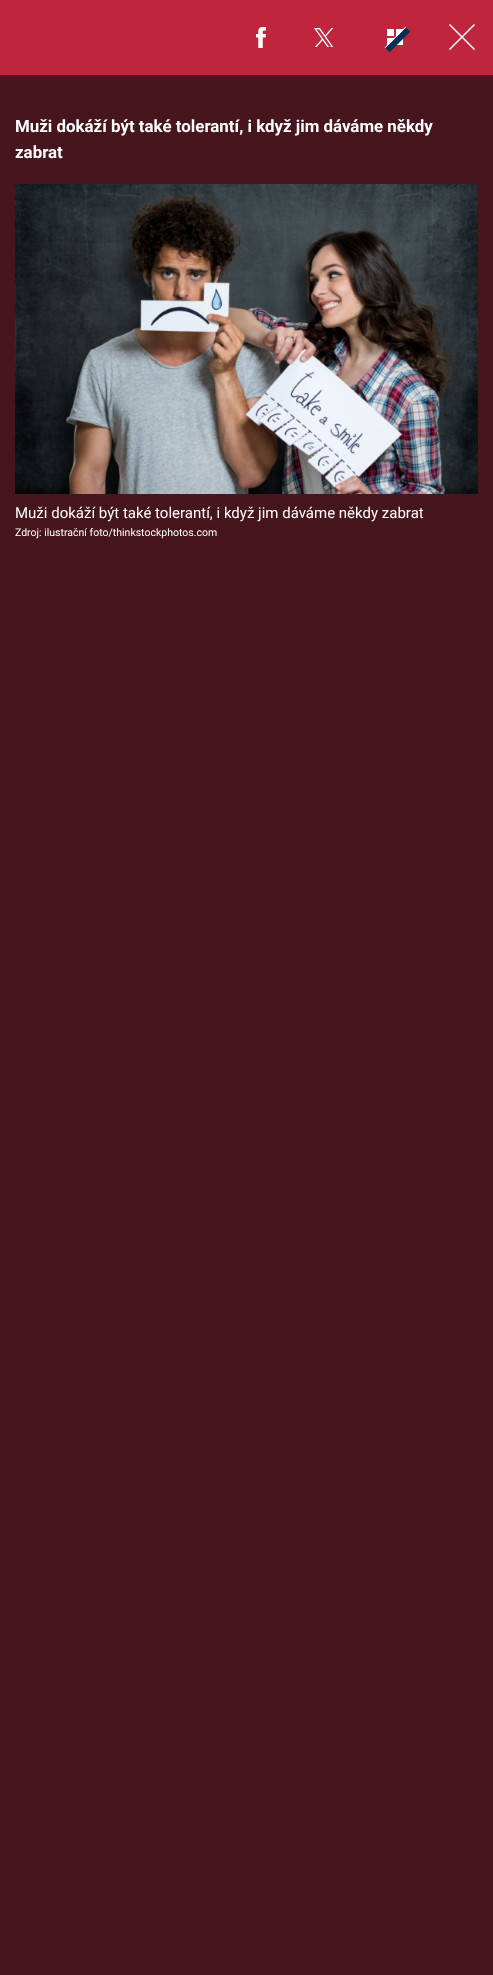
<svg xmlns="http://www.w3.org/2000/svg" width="493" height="1975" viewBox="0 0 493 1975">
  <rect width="100%" height="100%" fill="rgb(70,21,29)"/>
  <rect x="0" y="0" width="493" height="75" fill="rgb(191,37,60)"/>
  <image x="256" y="27" width="10" height="21" href="pic1.png"/>
  <image x="314" y="28" width="20" height="19" href="pic2.png"/>
  <image x="384" y="26" width="27" height="27" href="pic3.png"/>
  <path d="M449.5 24.5L474.5 49.5M474.5 24.5L449.5 49.5" fill="none" stroke="rgb(255,255,255)" stroke-width="1.5"/>
  <g font-family="Roboto" font-size="16.9" font-weight="bold" fill="rgb(255,255,255)">
    <text>
      <tspan x="15" y="132">Muži dokáží být také tolerantí, i když jim dáváme někdy</tspan>
      <tspan x="15" y="158">zabrat</tspan>
    </text>
  </g>
  <image x="15" y="184" width="463" height="310" href="pic4.png"/>
  <text x="15" y="518" font-family="Roboto" font-size="15" fill="rgb(255,255,255)">Muži dokáží být také tolerantí, i když jim dáváme někdy zabrat</text>
  <text x="15" y="536" font-family="Roboto" font-size="10.5" fill="rgb(255,255,255)">Zdroj: ilustrační foto/thinkstockphotos.com</text>
</svg>
